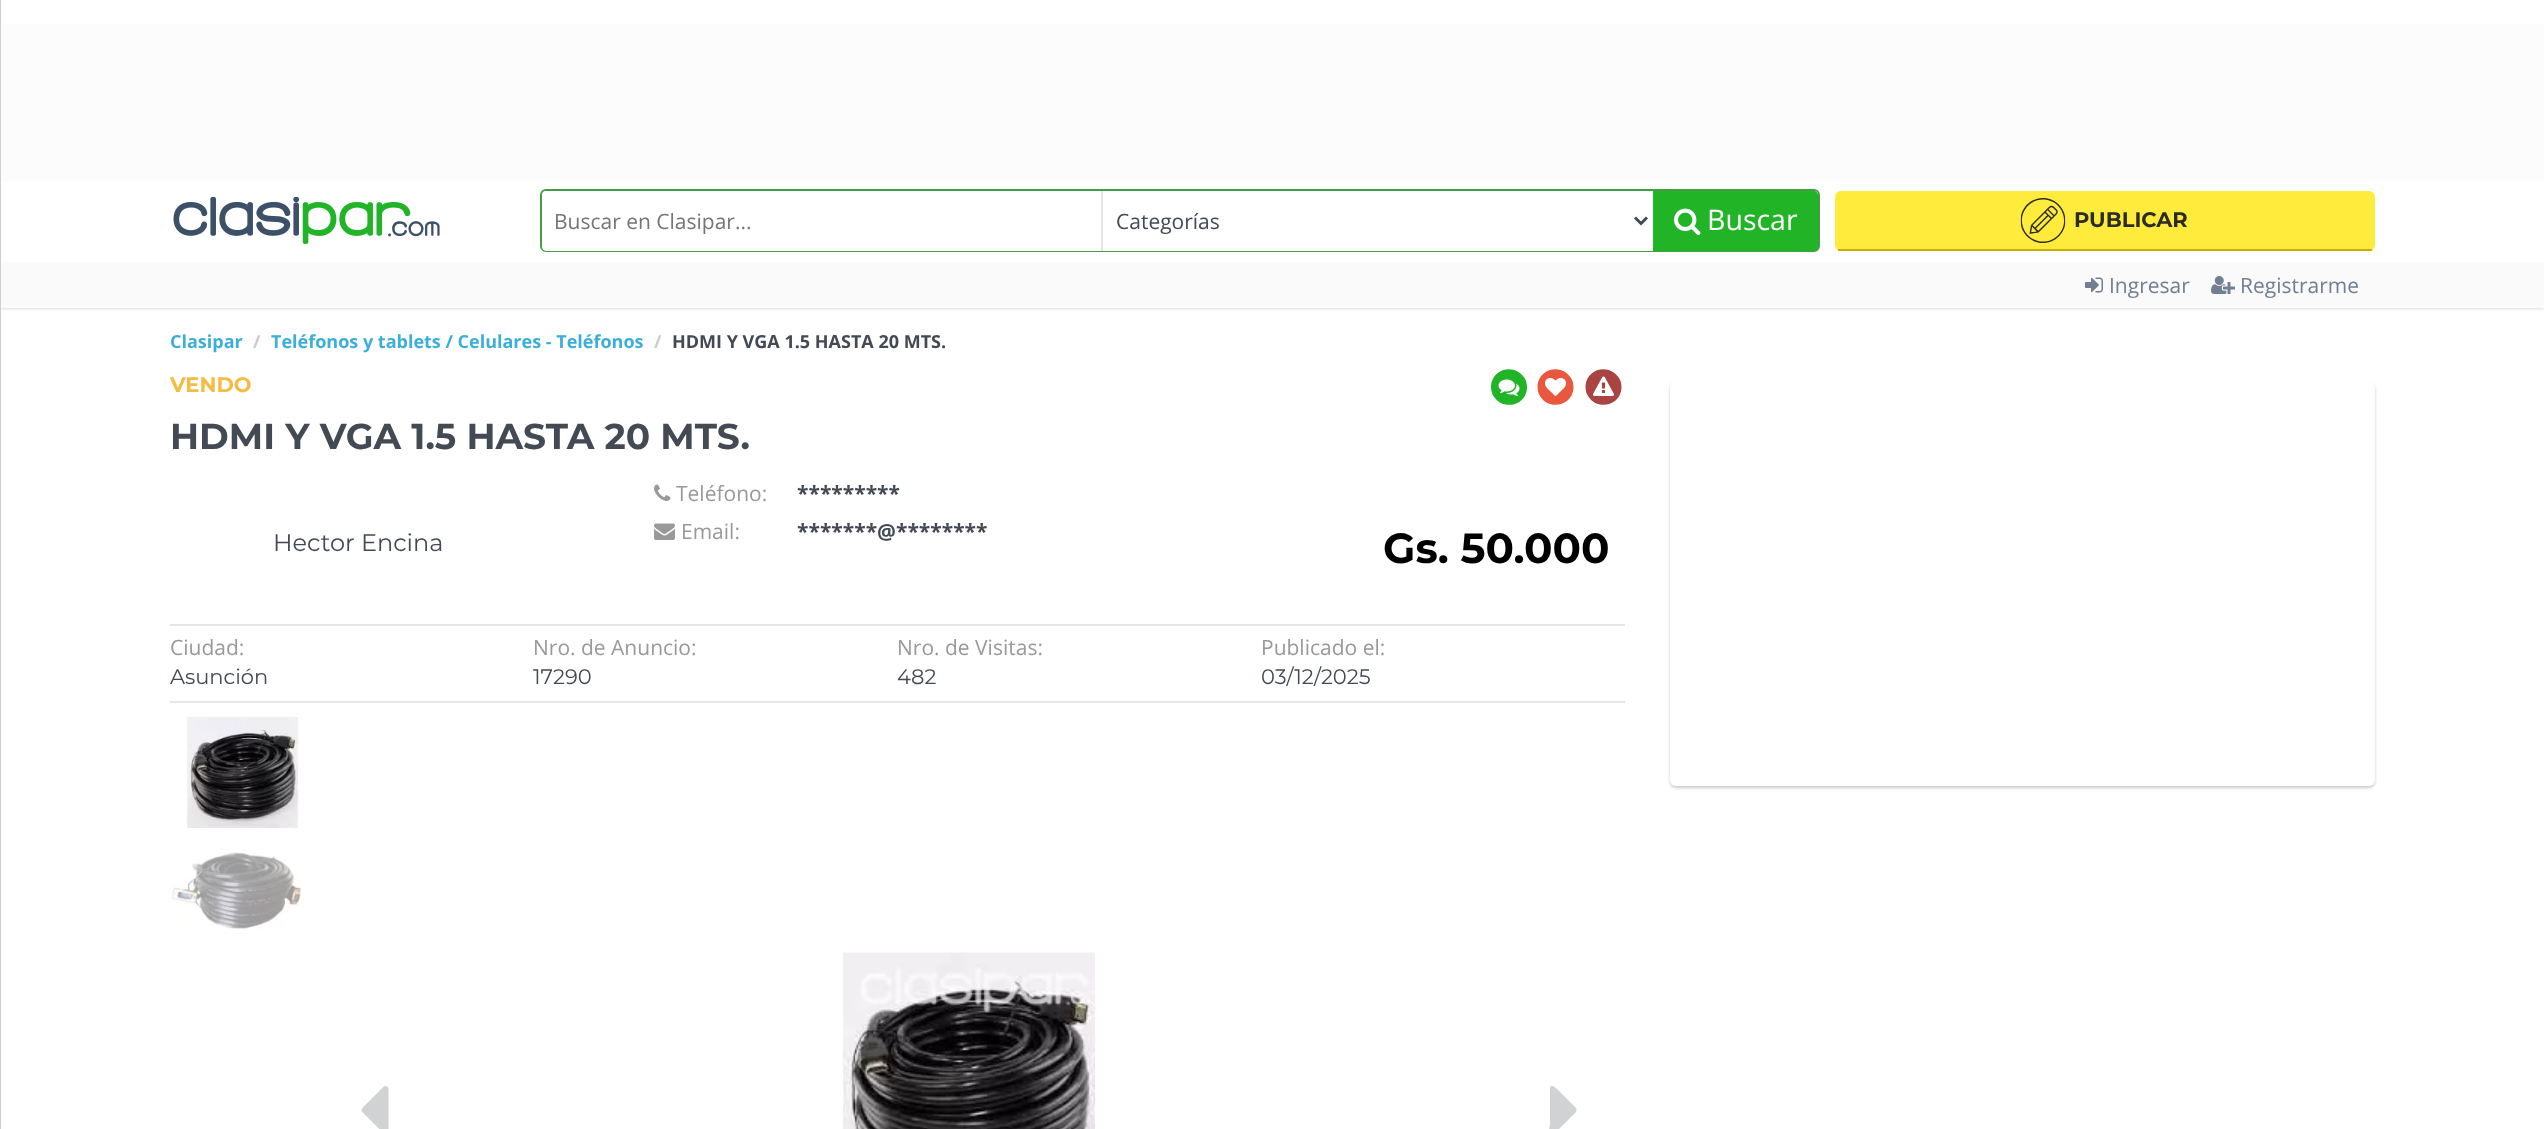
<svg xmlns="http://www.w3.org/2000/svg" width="2544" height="1129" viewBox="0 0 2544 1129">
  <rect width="100%" height="100%" fill="rgb(255,255,255)"/>
  <rect x="0" y="264" width="2544" height="45" fill="rgb(221,221,221)" filter="blur(1.5px)"/>
  <rect x="0" y="0" width="1" height="1129" fill="rgb(204,209,217)"/>
  <rect x="1" y="24" width="2543" height="158" fill="rgb(252,252,252)"/>
  <image x="173" y="197" width="267" height="47" href="pic1.png"/>
  <rect x="541" y="190" width="1278" height="61" rx="5" fill="none" stroke="rgb(68,157,68)" stroke-width="2"/>
  <path d="M547 191H1103V251H547C544 251 542 249 542 246V196C542 193 544 191 547 191Z" fill="rgb(255,255,255)"/>
  <rect x="1101" y="191" width="2" height="60" fill="rgb(230,230,230)"/>
  <text x="554" y="229" font-family="Open Sans" font-size="21" fill="rgb(117,117,117)">Buscar en Clasipar...</text>
  <rect x="1103" y="250" width="550" height="1" fill="rgb(255,255,255)"/>
  <path d="M1635 217.5L1641 223.5L1647 217.5" fill="none" stroke="rgb(67,74,84)" stroke-width="3"/>
  <text x="1116" y="229" font-family="Open Sans" font-size="21" fill="rgb(67,74,84)">Categorías</text>
  <path d="M1653 191H1813C1816 191 1818 193 1818 196V246C1818 249 1816 251 1813 251H1653Z" fill="rgb(32,180,38)"/>
  <path d="M1653 191V251H1813C1816 251 1818 249 1818 246V196C1818 193 1816 191 1813 191ZM1655 193V249H1816V193Z" fill="rgb(32,180,38)" fill-rule="evenodd"/>
  <image x="1674" y="208" width="27" height="28" href="pic2.png"/>
  <text x="1707" y="230" font-family="Open Sans" font-size="28.5" fill="rgb(255,255,255)">Buscar</text>
  <rect x="1835" y="191" width="540" height="60" rx="6" fill="rgb(255,235,59)"/>
  <rect x="1838" y="249" width="534" height="2" fill="rgb(204,174,0)"/>
  <image x="2020" y="198" width="46" height="45" href="pic3.png"/>
  <text x="2074" y="227" font-family="Montserrat" font-size="21" font-weight="bold" fill="rgb(43,43,42)">PUBLICAR</text>
  <rect x="1" y="263" width="2543" height="45" fill="rgb(250,250,250)"/>
  <image x="2085" y="277" width="18" height="16" href="pic4.png"/>
  <text x="2109" y="293" font-family="Open Sans" font-size="21" fill="rgb(113,127,146)">Ingresar</text>
  <image x="2211" y="276" width="24" height="18" href="pic5.png"/>
  <text x="2240" y="293" font-family="Open Sans" font-size="21" fill="rgb(113,127,146)">Registrarme</text>
  <text x="170" y="348" font-family="Open Sans" font-size="18" font-weight="bold" fill="rgb(59,175,218)">Clasipar</text>
  <text x="253" y="348" font-family="Open Sans" font-size="18" font-weight="bold" fill="rgb(204,204,204)">/</text>
  <text x="271" y="348" font-family="Open Sans" font-size="18" font-weight="bold" fill="rgb(59,175,218)">Teléfonos y tablets / Celulares - Teléfonos</text>
  <text x="654" y="348" font-family="Open Sans" font-size="18" font-weight="bold" fill="rgb(204,204,204)">/</text>
  <text x="672" y="348" font-family="Open Sans" font-size="18" font-weight="bold" fill="rgb(67,74,84)">HDMI Y VGA 1.5 HASTA 20 MTS.</text>
  <text x="170" y="392" font-family="Montserrat" font-size="21" font-weight="bold" fill="rgb(246,187,66)">VENDO</text>
  <path d="M1524.5 378C1526.5 381 1527 384.5 1527 388C1526 406 1502.5 411 1493.5 396C1491.5 393 1491 389.5 1491 386C1492 368 1515.5 363 1524.5 378Z" fill="rgb(32,180,38)"/>
  <image x="1498" y="379" width="22" height="17" href="pic6.png"/>
  <path d="M1571 378C1573 381 1573.5 384.5 1573.5 388C1572.5 406 1549 411 1540 396C1538 393 1537.5 389.5 1537.5 386C1538.5 368 1562 363 1571 378Z" fill="rgb(233,87,63)"/>
  <image x="1545" y="378" width="21" height="18" href="pic7.png"/>
  <path d="M1619 378C1621 381 1621.5 384.5 1621.5 388C1620.5 406 1597 411 1588 396C1586 393 1585.5 389.5 1585.5 386C1586.5 368 1610 363 1619 378Z" fill="rgb(169,68,66)"/>
  <image x="1593" y="376" width="21" height="20" href="pic8.png"/>
  <text x="170" y="449" font-family="Montserrat" font-size="36" font-weight="bold" fill="rgb(67,74,84)">HDMI Y VGA 1.5 HASTA 20 MTS.</text>
  <text x="273" y="551" font-family="Montserrat" font-size="24" fill="rgb(67,74,84)">Hector Encina</text>
  <image x="654" y="484" width="17" height="17" href="pic9.png"/>
  <text x="676" y="501" font-family="Open Sans" font-size="21" fill="rgb(153,153,153)">Teléfono:</text>
  <text x="797" y="501" font-family="Open Sans" font-size="21" font-weight="bold" fill="rgb(67,74,84)">*********</text>
  <image x="654" y="523" width="21" height="17" href="pic10.png"/>
  <text x="681" y="539" font-family="Open Sans" font-size="21" fill="rgb(153,153,153)">Email:</text>
  <text x="797" y="539" font-family="Open Sans" font-size="21" font-weight="bold" fill="rgb(67,74,84)">*******@********</text>
  <text x="1383" y="563" font-family="Montserrat" font-size="42" font-weight="bold" fill="rgb(0,0,0)">Gs. 50.000</text>
  <rect x="170" y="624" width="1455" height="2" fill="rgb(230,230,230)"/>
  <rect x="170" y="701" width="1455" height="2" fill="rgb(230,230,230)"/>
  <text x="170" y="655" font-family="Open Sans" font-size="21" fill="rgb(153,153,153)">Ciudad:</text>
  <text x="170" y="684" font-family="Montserrat" font-size="21" fill="rgb(67,74,84)">Asunción</text>
  <text x="533" y="655" font-family="Open Sans" font-size="21" fill="rgb(153,153,153)">Nro. de Anuncio:</text>
  <text x="533" y="684" font-family="Montserrat" font-size="21" fill="rgb(67,74,84)">17290</text>
  <text x="897" y="655" font-family="Open Sans" font-size="21" fill="rgb(153,153,153)">Nro. de Visitas:</text>
  <text x="897" y="684" font-family="Montserrat" font-size="21" fill="rgb(67,74,84)">482</text>
  <text x="1261" y="655" font-family="Open Sans" font-size="21" fill="rgb(153,153,153)">Publicado el:</text>
  <text x="1261" y="684" font-family="Montserrat" font-size="21" fill="rgb(67,74,84)">03/12/2025</text>
  <image x="187" y="717" width="112" height="111" href="pic11.png"/>
  <image x="171" y="852" width="131" height="77" href="pic12.png"/>
  <image x="361" y="1086" width="28" height="43" href="pic13.png"/>
  <image x="843" y="952" width="252" height="177" href="pic14.png"/>
  <path d="M1576 1108C1578 1111 1574 1114 1572 1116L1558 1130C1556 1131 1553 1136 1550 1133C1548 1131 1550 1125 1550 1124V1088C1551 1083 1557 1089 1558 1090Z" fill="rgb(208,210,212)"/>
  <rect x="1670" y="383" width="705" height="405" rx="6" fill="rgba(0,0,0,0.2)" filter="blur(1.5px)"/>
  <rect x="1670" y="381" width="705" height="405" rx="6" fill="rgb(255,255,255)"/>
</svg>
